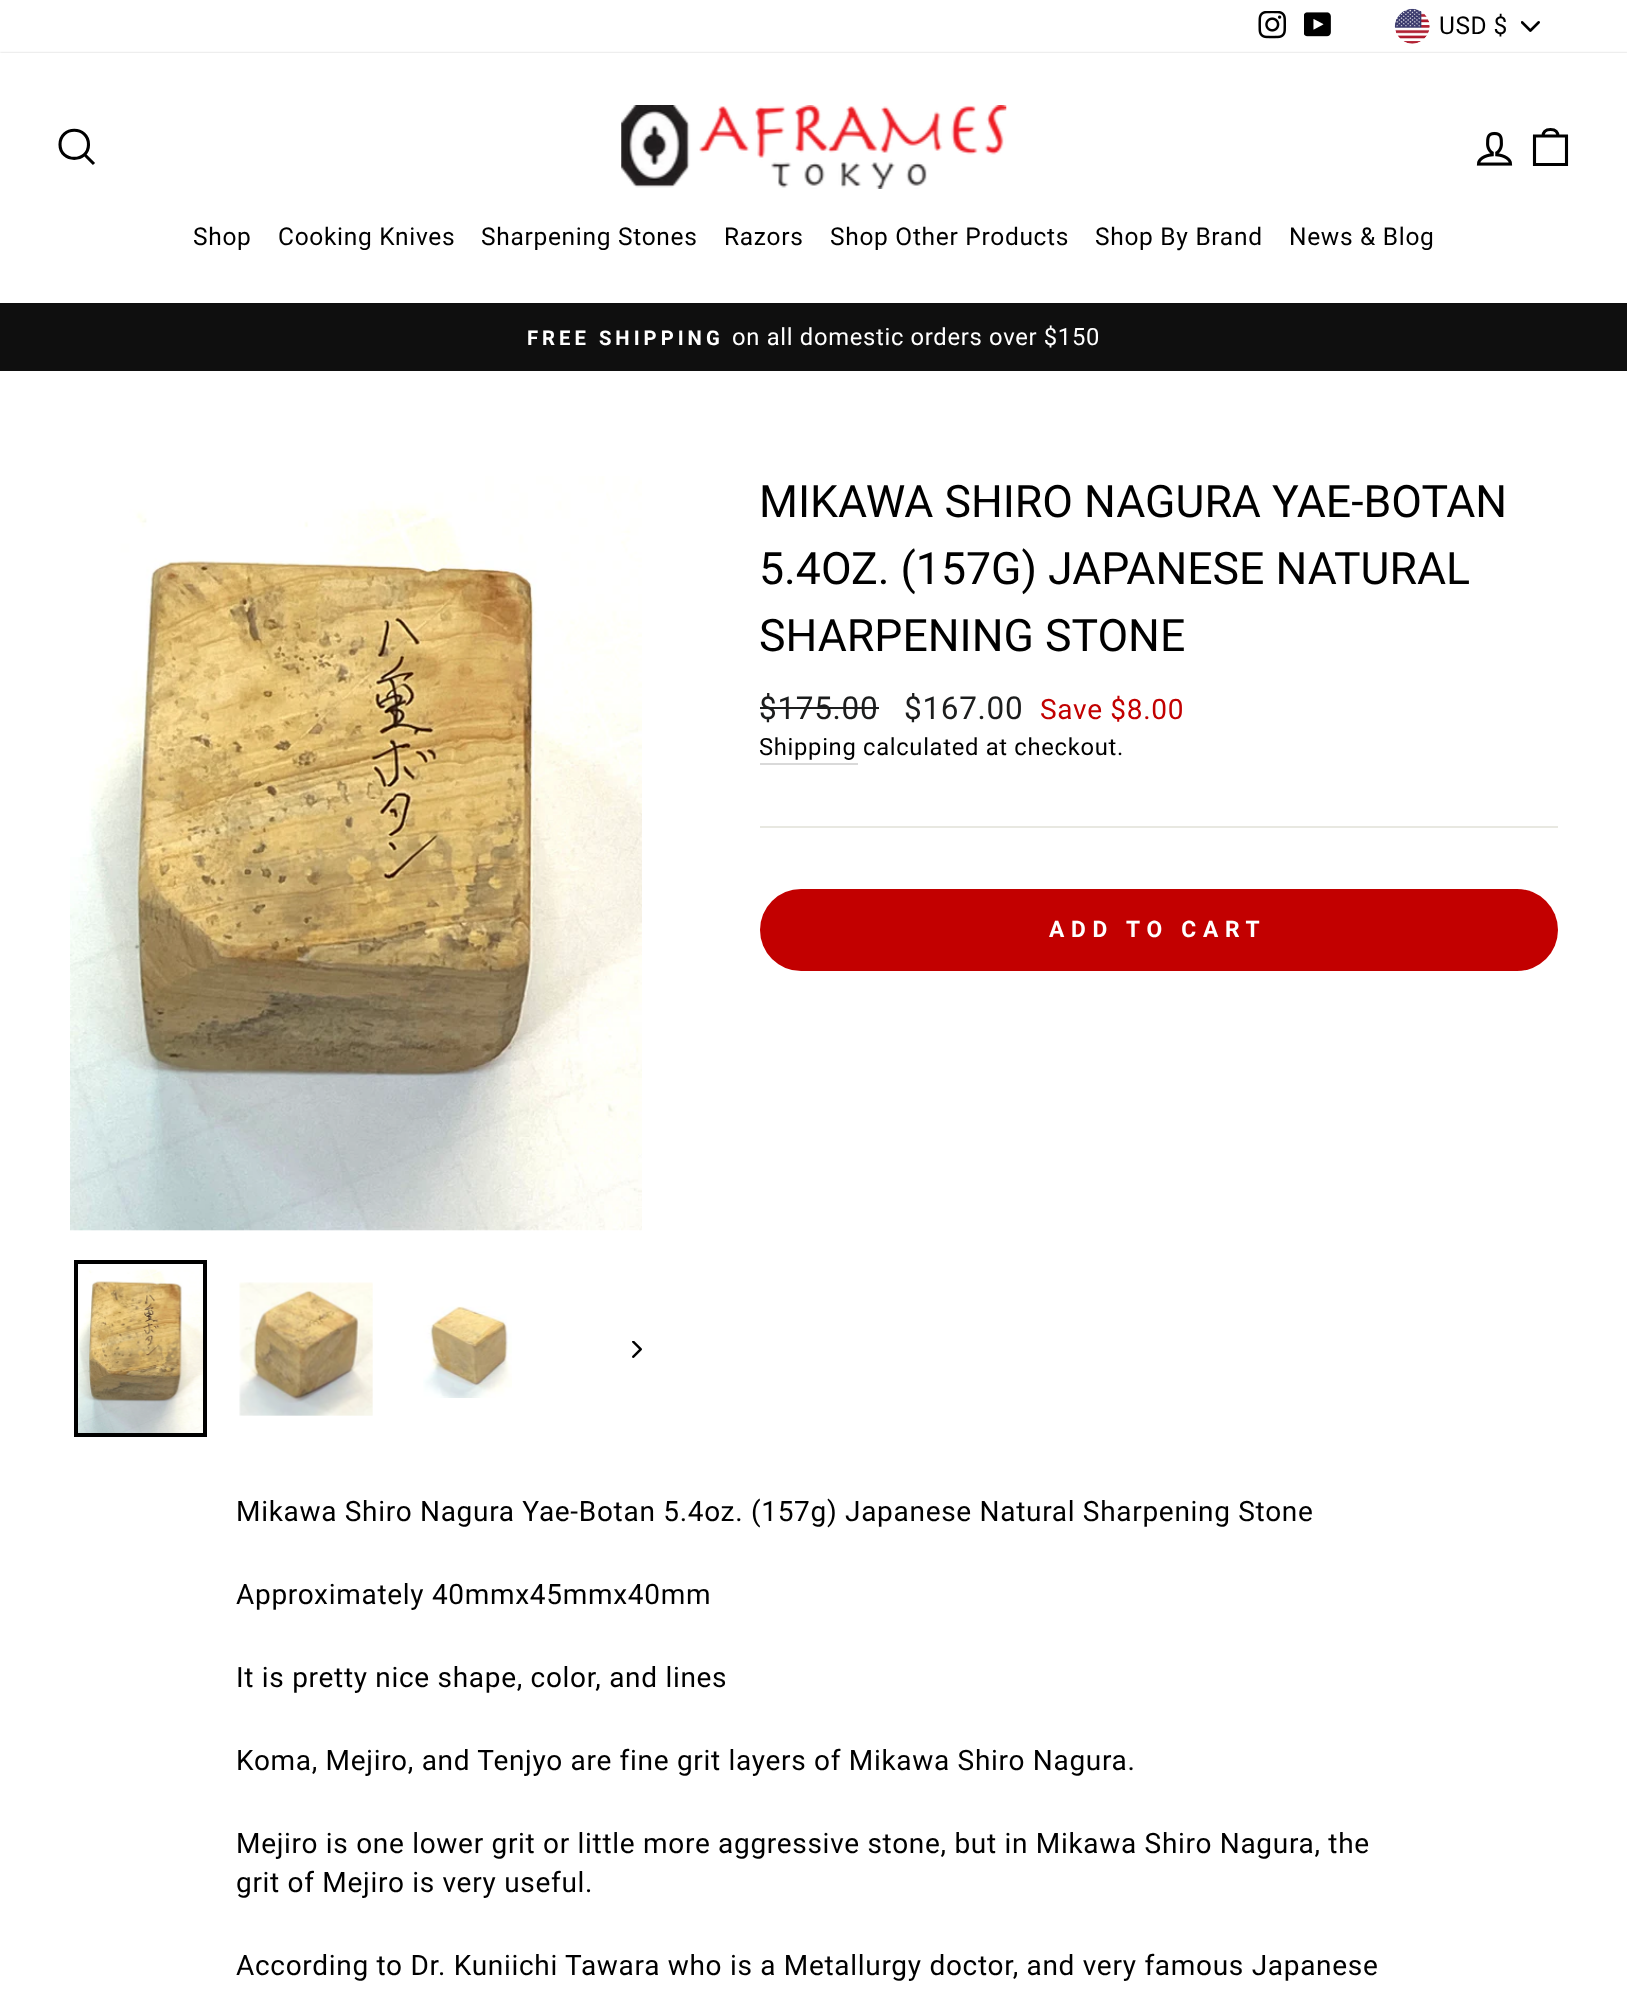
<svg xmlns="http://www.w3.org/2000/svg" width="1627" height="1990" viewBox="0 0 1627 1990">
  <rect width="100%" height="100%" fill="rgb(255,255,255)"/>
  <image x="1258" y="11" width="28" height="28" href="pic1.png"/>
  <image x="1304" y="12" width="27" height="25" href="pic2.png"/>
  <image x="1521" y="21" width="19" height="11" href="pic3.png"/>
  <image x="1394" y="8" width="36" height="36" href="pic4.png"/>
  <text x="1439" y="34" font-family="Roboto" font-size="24.5" letter-spacing="0.5" fill="rgb(0,0,0)">USD $</text>
  <rect x="0" y="303" width="1627" height="68" fill="rgb(15,15,15)"/>
  <rect x="0" y="53" width="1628" height="250" fill="rgba(0,0,0,0.2)" filter="blur(1px)"/>
  <rect x="0" y="53" width="1627" height="250" fill="rgb(255,255,255)"/>
  <path d="M88.5 144.5C88.5 163 60 163 60 144.5C60 125.5 88.5 125.5 88.5 144.5ZM94 164L84.5 154.5" fill="none" stroke="rgb(0,0,0)" stroke-width="3.1"/>
  <image x="621" y="105" width="386" height="84" href="pic5.png"/>
  <image x="1476" y="131" width="37" height="35" href="pic6.png"/>
  <path d="M1534.5 136H1566.5V164.5H1534.5ZM1543 136.5C1543 131 1546.5 129.5 1550.5 129.5C1554.5 129.5 1558 131 1558 136.5" fill="none" stroke="rgb(0,0,0)" stroke-width="3.1"/>
  <g font-family="Roboto" font-size="24.5" letter-spacing="0.7" fill="rgb(0,0,0)">
    <text x="193" y="245">Shop</text>
    <text x="278" y="245">Cooking Knives</text>
    <text x="481" y="245">Sharpening Stones</text>
    <text x="724" y="245">Razors</text>
    <text x="830" y="245">Shop Other Products</text>
    <text x="1095" y="245">Shop By Brand</text>
    <text x="1289" y="245">News &amp; Blog</text>
  </g>
  <text x="527" y="345" font-family="Roboto" font-size="20.25" font-weight="bold" letter-spacing="4" fill="rgb(255,255,255)">FREE SHIPPING</text>
  <text x="732" y="345" font-family="Roboto" font-size="23.75" letter-spacing="0.7" fill="rgb(255,255,255)">on all domestic orders over $150</text>
  <image x="70" y="476" width="572" height="755" href="pic7.png"/>
  <image x="78" y="1269" width="125" height="164" href="pic8.png"/>
  <rect x="76" y="1262" width="129" height="173" fill="none" stroke="rgb(0,0,0)" stroke-width="4"/>
  <image x="239" y="1282" width="134" height="134" href="pic9.png"/>
  <image x="423" y="1306" width="89" height="92" href="pic10.png"/>
  <image x="632" y="1341" width="10" height="17" href="pic11.png"/>
  <g font-family="Roboto" font-size="44.6" fill="rgb(0,0,0)">
    <text>
      <tspan x="759" y="517">MIKAWA SHIRO NAGURA YAE-BOTAN</tspan>
      <tspan x="759" y="584">5.4OZ. (157G) JAPANESE NATURAL</tspan>
      <tspan x="759" y="651">SHARPENING STONE</tspan>
    </text>
  </g>
  <text x="759" y="719" font-family="Roboto" font-size="31.5" letter-spacing="0.7" fill="rgb(28,29,29)">$175.00</text>
  <rect x="760" y="707" width="119" height="2" fill="rgb(28,29,29)"/>
  <text x="904" y="719" font-family="Roboto" font-size="31.5" letter-spacing="0.7" fill="rgb(28,29,29)">$167.00</text>
  <text x="1040" y="719" font-family="Roboto" font-size="28" letter-spacing="0.7" fill="rgb(194,0,0)">Save $8.00</text>
  <rect x="760" y="763" width="98" height="2" fill="rgb(217,217,217)"/>
  <g font-family="Roboto" font-size="23.75" letter-spacing="0.7" fill="rgb(0,0,0)">
    <text x="759" y="755">Shipping</text>
    <text x="863" y="755">calculated at checkout.</text>
  </g>
  <rect x="760" y="826" width="798" height="2" fill="rgb(232,232,225)"/>
  <rect x="760" y="889" width="798" height="82" rx="41" fill="rgb(194,0,0)"/>
  <text x="1049" y="937" font-family="Roboto" font-size="22.75" font-weight="bold" letter-spacing="6.75" fill="rgb(255,255,255)">ADD TO CART</text>
  <g font-family="Roboto" font-size="28" letter-spacing="0.7" fill="rgb(0,0,0)">
    <text x="236" y="1521">Mikawa Shiro Nagura Yae-Botan 5.4oz. (157g) Japanese Natural Sharpening Stone</text>
    <text x="236" y="1604">Approximately 40mmx45mmx40mm</text>
    <text x="236" y="1687">It is pretty nice shape, color, and lines</text>
    <text x="236" y="1770">Koma, Mejiro, and Tenjyo are fine grit layers of Mikawa Shiro Nagura.</text>
    <text>
      <tspan x="236" y="1853">Mejiro is one lower grit or little more aggressive stone, but in Mikawa Shiro Nagura, the</tspan>
      <tspan x="236" y="1892">grit of Mejiro is very useful.</tspan>
    </text>
    <text x="236" y="1975">According to Dr. Kuniichi Tawara who is a Metallurgy doctor, and very famous Japanese</text>
  </g>
</svg>
